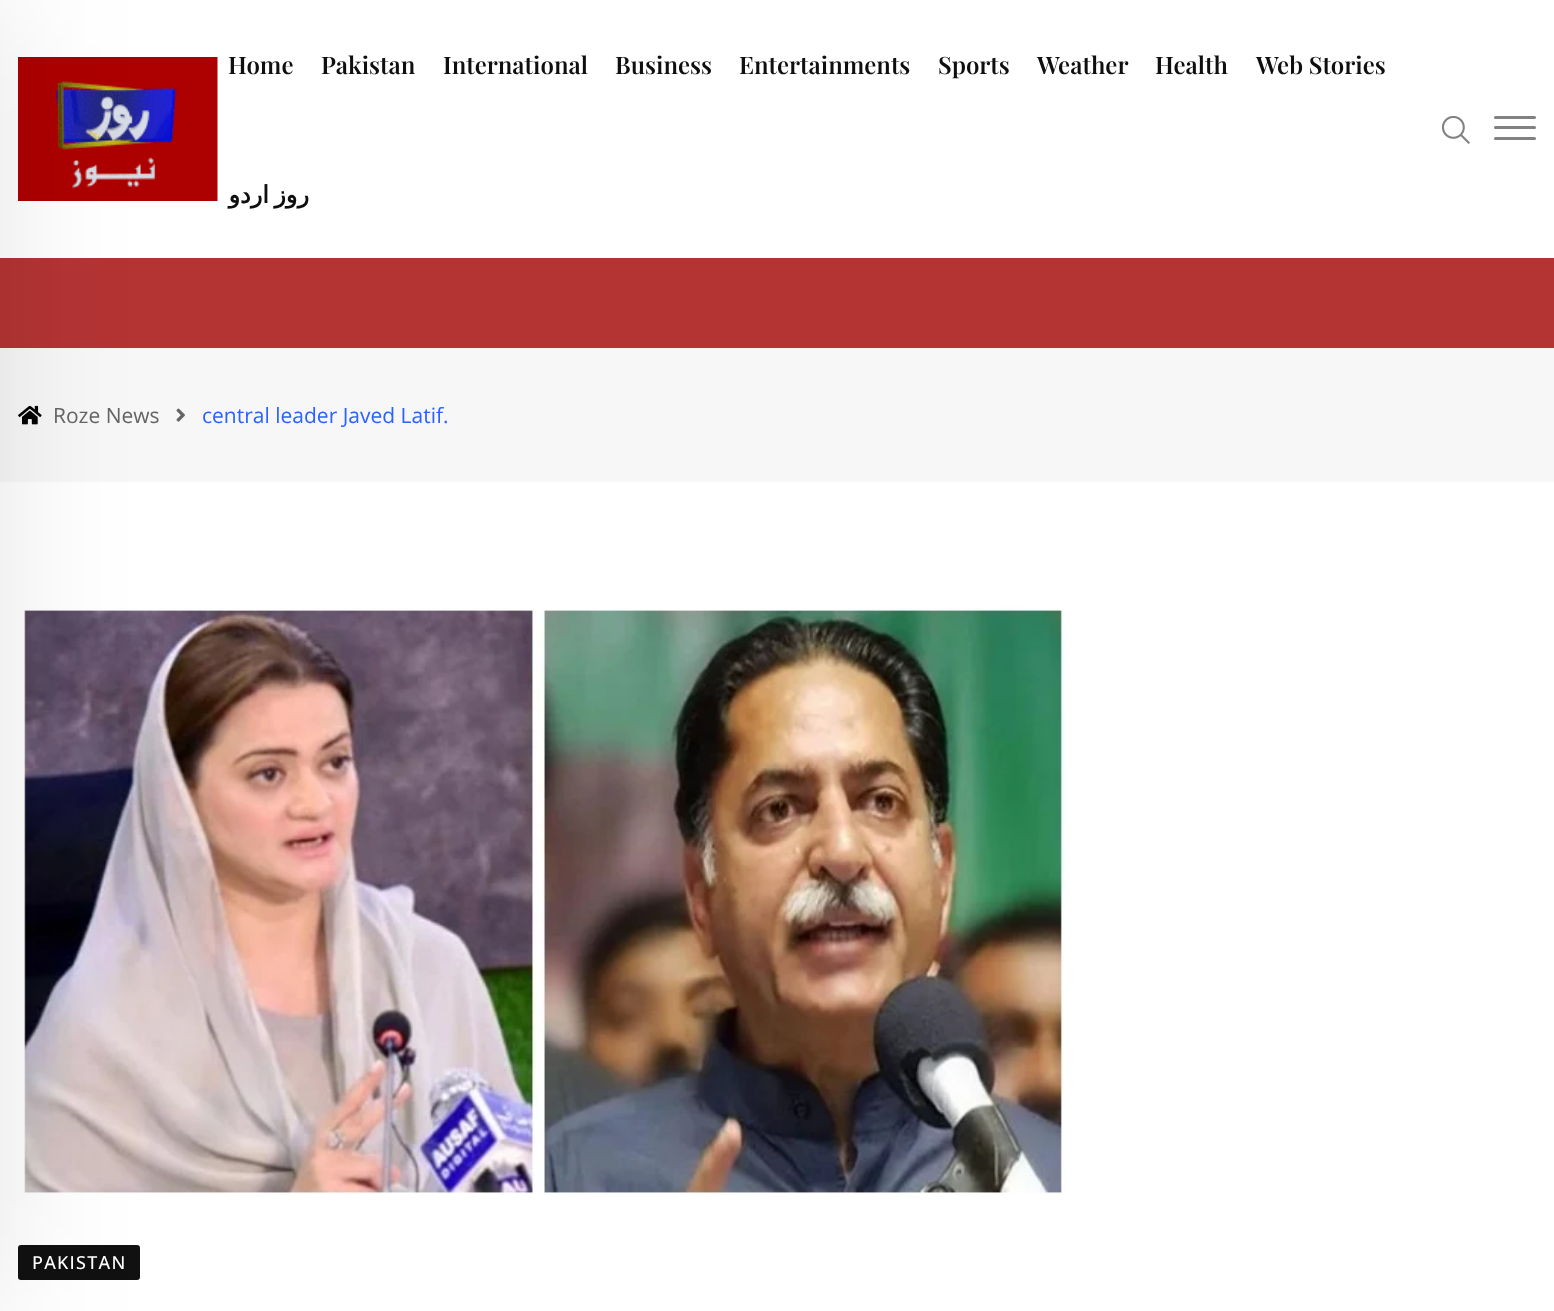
<svg xmlns="http://www.w3.org/2000/svg" width="1554" height="1311" viewBox="0 0 1554 1311">
  <rect width="100%" height="100%" fill="rgb(255,255,255)"/>
  <rect x="0" y="258" width="1554" height="90" fill="rgb(180,52,52)"/>
  <image x="18" y="57" width="200" height="144" href="pic2.png"/>
  <rect x="0" y="348" width="1554" height="134" fill="rgb(247,247,247)"/>
  <image x="18" y="405" width="24" height="20" href="pic3.png"/>
  <image x="176" y="408" width="9" height="14" href="pic4.png"/>
  <image x="24" y="607" width="1041" height="587" href="pic5.png"/>
  <rect x="18" y="1245" width="122" height="35" rx="3" fill="rgb(17,17,17)"/>
  <rect x="-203" y="0" width="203" height="1311" fill="rgba(0,0,0,0.1)" filter="blur(67.5px)"/>
  <rect x="1494" y="116" width="42" height="3" rx="1.5" fill="rgb(129,129,129)"/>
  <rect x="1494" y="126" width="42" height="3" rx="1.5" fill="rgb(129,129,129)"/>
  <rect x="1494" y="137" width="42" height="3" rx="1.5" fill="rgb(129,129,129)"/>
  <image x="1442" y="116" width="28" height="28" href="pic1.png"/>
  <g font-family="Playfair Display" font-size="24" font-weight="600" fill="rgb(15,15,15)">
    <text x="228" y="74">Home</text>
    <text x="321" y="74">Pakistan</text>
    <text x="443" y="74">International</text>
    <text x="615" y="74">Business</text>
    <text x="739" y="74">Entertainments</text>
    <text x="938" y="74">Sports</text>
    <text x="1037" y="74">Weather</text>
    <text x="1155" y="74">Health</text>
    <text x="1256" y="74">Web Stories</text>
  </g>
  <g font-family="DejaVu Sans" font-size="24" font-weight="bold" direction="rtl" fill="rgb(15,15,15)">
    <text x="269" y="203">اردو</text>
    <text x="309" y="203">روز</text>
  </g>
  <text x="53" y="423" font-family="Open Sans" font-size="21" fill="rgb(100,100,100)">Roze News</text>
  <text x="202" y="423" font-family="Open Sans" font-size="21" fill="rgb(41,98,255)">central leader Javed Latif.</text>
  <text x="32" y="1269" font-family="Open Sans" font-size="18" font-weight="500" letter-spacing="1.25" fill="rgb(255,255,255)">PAKISTAN</text>
</svg>
